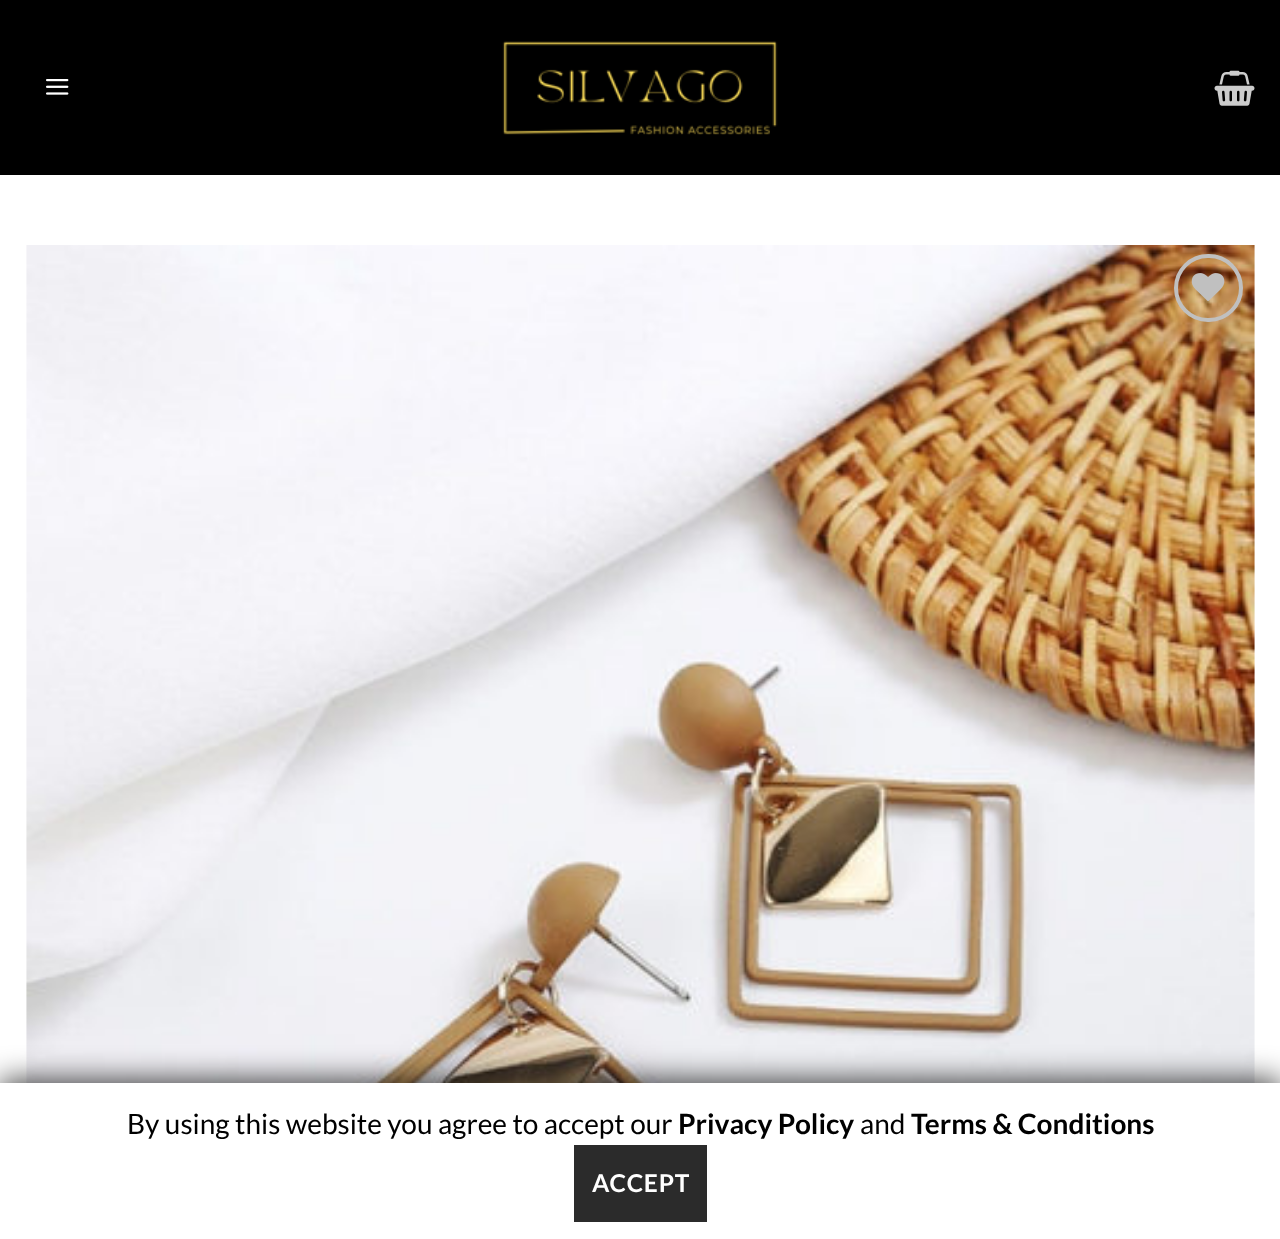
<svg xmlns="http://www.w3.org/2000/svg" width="1280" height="1239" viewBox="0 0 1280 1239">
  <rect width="100%" height="100%" fill="rgb(255,255,255)"/>
  <rect x="0" y="0" width="1280" height="175" fill="rgb(0,0,0)"/>
  <image x="46" y="79" width="23" height="16" href="pic1.png"/>
  <image x="502" y="41" width="276" height="94" href="pic2.png"/>
  <image x="1214" y="70" width="41" height="36" href="pic3.png"/>
  <image x="26" y="245" width="1229" height="838" href="pic4.png"/>
  <rect x="1176" y="256" width="65" height="64" rx="32" fill="none" stroke="rgb(192,192,192)" stroke-width="4"/>
  <image x="1191" y="273" width="34" height="28" href="pic5.png"/>
  <rect x="0" y="1080" width="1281" height="156" fill="rgba(0,0,0,0.75)" filter="blur(15px)"/>
  <rect x="0" y="1083" width="1280" height="156" fill="rgb(255,255,255)"/>
  <text x="127" y="1134" font-family="Lato" font-size="28" fill="rgb(0,0,0)">By using this website you agree to accept our</text>
  <text x="678" y="1134" font-family="Lato" font-size="28" font-weight="bold" fill="rgb(0,0,0)">Privacy Policy</text>
  <text x="860" y="1134" font-family="Lato" font-size="28" fill="rgb(0,0,0)">and</text>
  <text x="911" y="1134" font-family="Lato" font-size="28" font-weight="bold" fill="rgb(0,0,0)">Terms &amp; Conditions</text>
  <rect x="574" y="1145" width="133" height="77" fill="rgb(43,43,43)"/>
  <text x="592" y="1192" font-family="Lato" font-size="24.5" font-weight="bold" letter-spacing="0.75" fill="rgb(255,255,255)">ACCEPT</text>
</svg>
